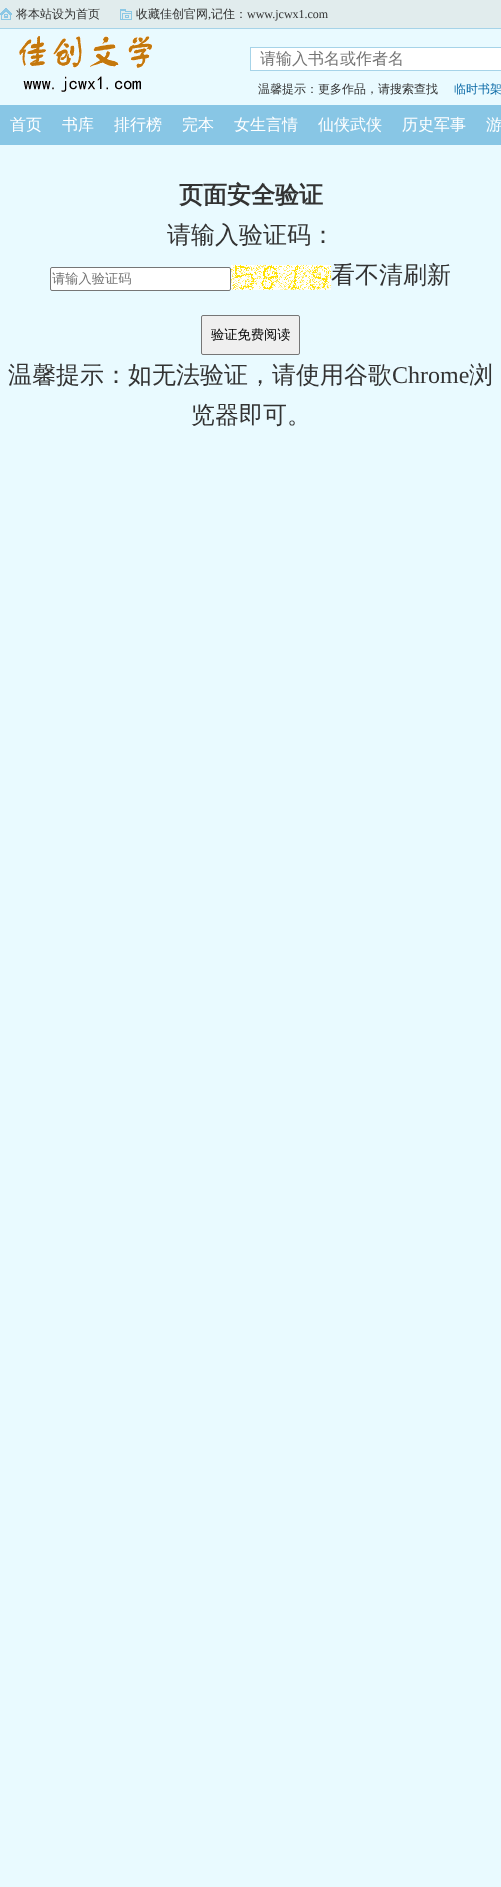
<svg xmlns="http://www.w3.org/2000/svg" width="501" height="1887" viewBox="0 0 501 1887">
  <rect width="100%" height="100%" fill="rgb(233,250,255)"/>
  <rect x="0" y="0" width="501" height="28" fill="rgb(225,236,237)"/>
  <rect x="0" y="28" width="501" height="1" fill="rgb(166,211,232)"/>
  <image x="0" y="8" width="12" height="12" href="pic1.png"/>
  <text x="16" y="18" font-family="WenQuanYi Zen Hei" font-size="12" font-weight="500" fill="rgb(51,51,51)">将本站设为首页</text>
  <image x="120" y="9" width="12" height="11" href="pic2.png"/>
  <text x="136" y="18" font-family="WenQuanYi Zen Hei" font-size="12" font-weight="500" fill="rgb(51,51,51)">收藏佳创官网</text>
  <text x="208" y="18" font-family="Liberation Serif" font-size="12" fill="rgb(51,51,51)">,</text>
  <text x="211" y="18" font-family="WenQuanYi Zen Hei" font-size="12" font-weight="500" fill="rgb(51,51,51)">记住：</text>
  <text x="247" y="18" font-family="Liberation Serif" font-size="12" fill="rgb(51,51,51)">www.jcwx1.com</text>
  <image x="19" y="36" width="133" height="56" href="pic3.png"/>
  <rect x="250.5" y="47.5" width="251" height="23" fill="rgb(255,255,255)" stroke="rgb(166,211,232)"/>
  <text x="260" y="64" font-family="WenQuanYi Zen Hei" font-size="16" font-weight="500" fill="rgb(117,117,117)">请输入书名或作者名</text>
  <text x="258" y="93" font-family="WenQuanYi Zen Hei" font-size="12" font-weight="500" fill="rgb(51,51,51)">温馨提示：更多作品，请搜索查找</text>
  <text x="454" y="93" font-family="WenQuanYi Zen Hei" font-size="12" font-weight="500" fill="rgb(10,105,166)">临时书架</text>
  <rect x="0" y="105" width="501" height="40" fill="rgb(136,198,229)"/>
  <g font-family="WenQuanYi Zen Hei" font-size="16" font-weight="500" fill="rgb(255,255,255)">
    <text x="10" y="130">首页</text>
    <text x="62" y="130">书库</text>
    <text x="114" y="130">排行榜</text>
    <text x="182" y="130">完本</text>
    <text x="234" y="130">女生言情</text>
    <text x="318" y="130">仙侠武侠</text>
    <text x="402" y="130">历史军事</text>
    <text x="486" y="130">游</text>
  </g>
  <text x="179" y="203" font-family="WenQuanYi Zen Hei" font-size="24" font-weight="bold" fill="rgb(51,51,51)">页面安全验证</text>
  <text x="167" y="243" font-family="WenQuanYi Zen Hei" font-size="24" font-weight="500" fill="rgb(51,51,51)">请输入验证码：</text>
  <rect x="50.5" y="267.5" width="180" height="23" rx="1.5" fill="rgb(255,255,255)" stroke="rgb(118,118,118)"/>
  <text x="52" y="283" font-family="WenQuanYi Zen Hei" font-size="13.25" font-weight="500" fill="rgb(117,117,117)">请输入验证码</text>
  <image x="231" y="265" width="100" height="25" href="pic4.png"/>
  <text x="331" y="283" font-family="WenQuanYi Zen Hei" font-size="24" font-weight="500" fill="rgb(51,51,51)">看不清刷新</text>
  <rect x="201.5" y="315.5" width="98" height="39" rx="1.5" fill="rgb(239,239,239)" stroke="rgb(118,118,118)"/>
  <text x="211" y="339" font-family="WenQuanYi Zen Hei" font-size="13.25" font-weight="500" fill="rgb(0,0,0)">验证免费阅读</text>
  <text x="8" y="383" font-family="WenQuanYi Zen Hei" font-size="24" font-weight="500" fill="rgb(51,51,51)">温馨提示：如无法验证，请使用谷歌</text>
  <text x="392" y="383" font-family="Liberation Serif" font-size="24" fill="rgb(51,51,51)">Chrome</text>
  <g font-family="WenQuanYi Zen Hei" font-size="24" font-weight="500" fill="rgb(51,51,51)">
    <text x="469" y="383">浏</text>
    <text x="191" y="423">览器即可。</text>
  </g>
</svg>
